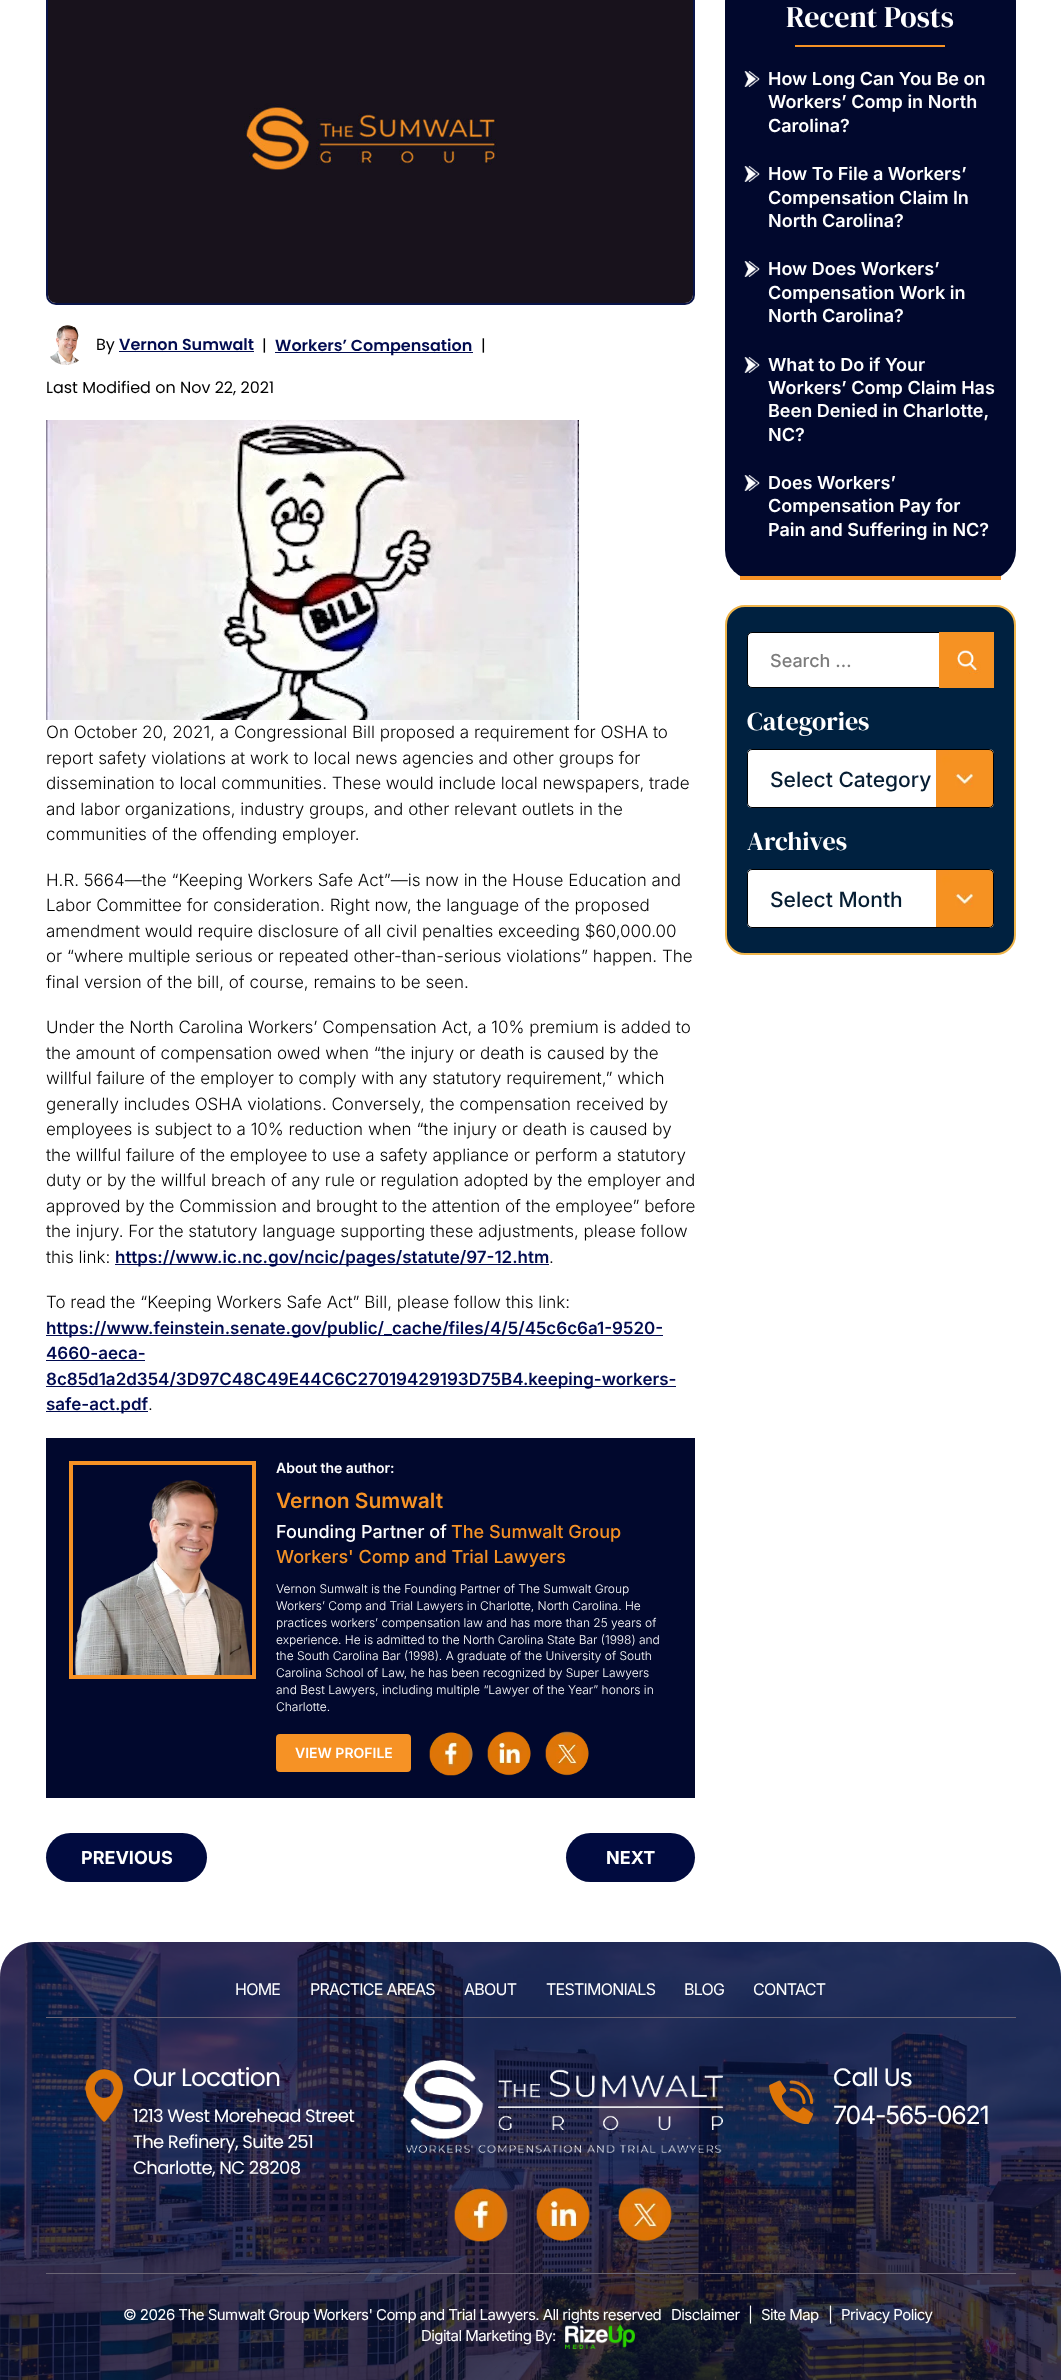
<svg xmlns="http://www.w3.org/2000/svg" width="1061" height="2380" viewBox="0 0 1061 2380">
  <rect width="100%" height="100%" fill="rgb(255,255,255)"/>
  <rect x="47" y="-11" width="647" height="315" rx="9" fill="none" stroke="rgb(9,20,74)" stroke-width="2"/>
  <image x="48" y="0" width="645" height="303" href="pic1.png"/>
  <image x="50" y="325" width="29" height="40" href="pic2.png"/>
  <text x="96" y="350" font-family="Poppins" font-size="16" fill="rgb(0,0,0)">By</text>
  <text x="119" y="350" font-family="Poppins" font-size="16" font-weight="600" fill="rgb(1,11,80)">Vernon Sumwalt</text>
  <rect x="119" y="351" width="135" height="1" fill="rgb(1,11,80)"/>
  <text x="262" y="351" font-family="Poppins" font-size="16" fill="rgb(0,0,0)">|</text>
  <rect x="275" y="352" width="198" height="1" fill="rgb(1,11,80)"/>
  <text x="275" y="351" font-family="Poppins" font-size="16" font-weight="600" fill="rgb(1,11,80)">Workers’ Compensation</text>
  <g font-family="Poppins" font-size="16" fill="rgb(0,0,0)">
    <text x="481" y="351">|</text>
    <text x="46" y="393">Last Modified on Nov 22, 2021</text>
  </g>
  <image x="46" y="420" width="533" height="300" href="pic3.png"/>
  <g font-family="Inter" font-size="17" font-weight="300" fill="rgb(0,0,0)">
    <text>
      <tspan x="46" y="738">On October 20, 2021, a Congressional Bill proposed a requirement for OSHA to</tspan>
      <tspan x="46" y="764">report safety violations at work to local news agencies and other groups for</tspan>
      <tspan x="46" y="789">dissemination to local communities. These would include local newspapers, trade</tspan>
      <tspan x="46" y="815">and labor organizations, industry groups, and other relevant outlets in the</tspan>
      <tspan x="46" y="840">communities of the offending employer.</tspan>
    </text>
    <text>
      <tspan x="46" y="886">H.R. 5664—the “Keeping Workers Safe Act”—is now in the House Education and</tspan>
      <tspan x="46" y="911">Labor Committee for consideration. Right now, the language of the proposed</tspan>
      <tspan x="46" y="937">amendment would require disclosure of all civil penalties exceeding $60,000.00</tspan>
      <tspan x="46" y="962">or “where multiple serious or repeated other-than-serious violations” happen. The</tspan>
      <tspan x="46" y="988">final version of the bill, of course, remains to be seen.</tspan>
    </text>
    <text>
      <tspan x="46" y="1033">Under the North Carolina Workers’ Compensation Act, a 10% premium is added to</tspan>
      <tspan x="46" y="1059">the amount of compensation owed when “the injury or death is caused by the</tspan>
      <tspan x="46" y="1084">willful failure of the employer to comply with any statutory requirement,” which</tspan>
      <tspan x="46" y="1110">generally includes OSHA violations. Conversely, the compensation received by</tspan>
      <tspan x="46" y="1135">employees is subject to a 10% reduction when “the injury or death is caused by</tspan>
      <tspan x="46" y="1161">the willful failure of the employee to use a safety appliance or perform a statutory</tspan>
      <tspan x="46" y="1186">duty or by the willful breach of any rule or regulation adopted by the employer and</tspan>
      <tspan x="46" y="1212">approved by the Commission and brought to the attention of the employee” before</tspan>
      <tspan x="46" y="1237">the injury. For the statutory language supporting these adjustments, please follow</tspan>
      <tspan x="46" y="1263">this link:</tspan>
    </text>
  </g>
  <rect x="115" y="1264" width="434" height="1" fill="rgb(1,11,80)"/>
  <text x="115" y="1263" font-family="Inter" font-size="17" font-weight="600" fill="rgb(1,11,80)">https://www.ic.nc.gov/ncic/pages/statute/97-12.htm</text>
  <g font-family="Inter" font-size="17" font-weight="300" fill="rgb(0,0,0)">
    <text x="549" y="1263">.</text>
    <text x="46" y="1308">To read the “Keeping Workers Safe Act” Bill, please follow this link:</text>
  </g>
  <rect x="46" y="1335" width="617" height="1" fill="rgb(1,11,80)"/>
  <g font-family="Inter" font-size="17" font-weight="600" fill="rgb(1,11,80)">
    <text>
      <tspan x="46" y="1334">https://www.feinstein.senate.gov/public/_cache/files/4/5/45c6c6a1-9520-</tspan>
      <tspan x="46" y="1359">4660-aeca-</tspan>
    </text>
  </g>
  <rect x="46" y="1360" width="99" height="1" fill="rgb(1,11,80)"/>
  <rect x="46" y="1386" width="630" height="1" fill="rgb(1,11,80)"/>
  <text x="46" y="1385" font-family="Inter" font-size="17" font-weight="600" fill="rgb(1,11,80)">8c85d1a2d354/3D97C48C49E44C6C27019429193D75B4.keeping-workers-</text>
  <rect x="46" y="1411" width="102" height="1" fill="rgb(1,11,80)"/>
  <text x="46" y="1410" font-family="Inter" font-size="17" font-weight="600" fill="rgb(1,11,80)">safe-act.pdf</text>
  <text x="148" y="1410" font-family="Inter" font-size="17" font-weight="300" fill="rgb(0,0,0)">.</text>
  <rect x="46" y="1438" width="649" height="360" fill="rgb(1,8,45)"/>
  <rect x="71" y="1463" width="183" height="214" fill="none" stroke="rgb(246,146,37)" stroke-width="4"/>
  <image x="74" y="1480" width="177" height="195" href="pic4.png"/>
  <text x="276" y="1473" font-family="Inter" font-size="14" font-weight="600" fill="rgb(255,255,255)">About the author:</text>
  <text x="276" y="1508" font-family="Inter" font-size="21" font-weight="600" fill="rgb(246,146,37)">Vernon Sumwalt</text>
  <text x="276" y="1538" font-family="Inter" font-size="18" font-weight="500" fill="rgb(255,255,255)">Founding Partner of</text>
  <g font-family="Inter" font-size="18" font-weight="500" fill="rgb(246,146,37)">
    <text x="451" y="1538">The Sumwalt Group</text>
    <text x="276" y="1563">Workers' Comp and Trial Lawyers</text>
  </g>
  <g font-family="Inter" font-size="12" font-weight="300" fill="rgb(255,255,255)">
    <text>
      <tspan x="276" y="1593">Vernon Sumwalt is the Founding Partner of The Sumwalt Group</tspan>
      <tspan x="276" y="1610">Workers’ Comp and Trial Lawyers in Charlotte, North Carolina. He</tspan>
      <tspan x="276" y="1627">practices workers’ compensation law and has more than 25 years of</tspan>
      <tspan x="276" y="1644">experience. He is admitted to the North Carolina State Bar (1998) and</tspan>
      <tspan x="276" y="1660">the South Carolina Bar (1998). A graduate of the University of South</tspan>
      <tspan x="276" y="1677">Carolina School of Law, he has been recognized by Super Lawyers</tspan>
      <tspan x="276" y="1694">and Best Lawyers, including multiple “Lawyer of the Year” honors in</tspan>
      <tspan x="276" y="1711">Charlotte.</tspan>
    </text>
  </g>
  <rect x="276" y="1734" width="135" height="38" rx="4" fill="rgb(246,146,37)"/>
  <text x="295" y="1758" font-family="Inter" font-size="14" font-weight="600" fill="rgb(255,255,255)">VIEW PROFILE</text>
  <image x="429" y="1732" width="44" height="44" href="pic5.png"/>
  <image x="487" y="1731" width="44" height="45" href="pic6.png"/>
  <image x="545" y="1731" width="44" height="45" href="pic7.png"/>
  <rect x="46" y="1833" width="161" height="49" rx="24.5" fill="rgb(1,11,63)"/>
  <text x="81" y="1864" font-family="Inter" font-size="18" font-weight="bold" fill="rgb(255,255,255)">PREVIOUS</text>
  <rect x="566" y="1833" width="129" height="49" rx="24.5" fill="rgb(1,11,63)"/>
  <text x="606" y="1864" font-family="Inter" font-size="18" font-weight="bold" fill="rgb(255,255,255)">NEXT</text>
  <rect x="725" y="-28" width="291" height="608" rx="30" fill="rgb(1,8,45)"/>
  <rect x="740" y="576" width="261" height="4" fill="rgb(246,146,37)"/>
  <text x="786" y="27" font-family="DM Serif Display" font-size="30" fill="rgb(255,255,255)">Recent Posts</text>
  <rect x="795" y="45" width="150" height="2" fill="rgb(246,146,37)"/>
  <image x="744" y="71" width="16" height="16" href="pic8.png"/>
  <g font-family="Inter" font-size="18" font-weight="600" fill="rgb(255,255,255)">
    <text>
      <tspan x="768" y="85">How Long Can You Be on</tspan>
      <tspan x="768" y="108">Workers’ Comp in North</tspan>
      <tspan x="768" y="132">Carolina?</tspan>
    </text>
  </g>
  <image x="744" y="166" width="16" height="16" href="pic8.png"/>
  <g font-family="Inter" font-size="18" font-weight="600" fill="rgb(255,255,255)">
    <text>
      <tspan x="768" y="180">How To File a Workers’</tspan>
      <tspan x="768" y="204">Compensation Claim In</tspan>
      <tspan x="768" y="227">North Carolina?</tspan>
    </text>
  </g>
  <image x="744" y="261" width="16" height="16" href="pic8.png"/>
  <g font-family="Inter" font-size="18" font-weight="600" fill="rgb(255,255,255)">
    <text>
      <tspan x="768" y="275">How Does Workers’</tspan>
      <tspan x="768" y="299">Compensation Work in</tspan>
      <tspan x="768" y="322">North Carolina?</tspan>
    </text>
  </g>
  <image x="744" y="357" width="16" height="16" href="pic8.png"/>
  <g font-family="Inter" font-size="18" font-weight="600" fill="rgb(255,255,255)">
    <text>
      <tspan x="768" y="371">What to Do if Your</tspan>
      <tspan x="768" y="394">Workers’ Comp Claim Has</tspan>
      <tspan x="768" y="417">Been Denied in Charlotte,</tspan>
      <tspan x="768" y="441">NC?</tspan>
    </text>
  </g>
  <image x="744" y="475" width="16" height="16" href="pic8.png"/>
  <g font-family="Inter" font-size="18" font-weight="600" fill="rgb(255,255,255)">
    <text>
      <tspan x="768" y="489">Does Workers’</tspan>
      <tspan x="768" y="512">Compensation Pay for</tspan>
      <tspan x="768" y="536">Pain and Suffering in NC?</tspan>
    </text>
  </g>
  <rect x="726" y="606" width="289" height="348" rx="19" fill="rgb(0,33,64)" stroke="rgb(239,181,75)" stroke-width="2"/>
  <rect x="747.5" y="632.5" width="246" height="55" rx="4.5" fill="rgb(255,255,255)" stroke="rgb(0,0,0)"/>
  <text x="770" y="667" font-family="Inter" font-size="18" font-weight="500" fill="rgb(124,124,124)">Search …</text>
  <image x="939" y="632" width="55" height="56" href="pic9.png"/>
  <text x="747" y="730" font-family="DM Serif Display" font-size="26" fill="rgb(255,255,255)">Categories</text>
  <rect x="747" y="749" width="247" height="59" rx="5" fill="rgb(255,255,255)"/>
  <image x="936" y="750" width="57" height="57" href="pic10.png"/>
  <rect x="747.5" y="749.5" width="246" height="58" rx="4.5" fill="none" stroke="rgb(0,0,0)"/>
  <text x="770" y="787" font-family="Inter" font-size="21" font-weight="500" fill="rgb(6,29,50)">Select Category</text>
  <text x="747" y="850" font-family="DM Serif Display" font-size="26" fill="rgb(255,255,255)">Archives</text>
  <rect x="747" y="869" width="247" height="59" rx="5" fill="rgb(255,255,255)"/>
  <image x="936" y="870" width="57" height="57" href="pic10.png"/>
  <rect x="747.5" y="869.5" width="246" height="58" rx="4.5" fill="none" stroke="rgb(0,0,0)"/>
  <text x="770" y="907" font-family="Inter" font-size="21" font-weight="500" fill="rgb(6,29,50)">Select Month</text>
  <image x="0" y="1942" width="1061" height="438" href="pic11.png"/>
  <path d="M35 1942H1026C1045.5 1942 1061 1957.5 1061 1977V2380H0V1977C0 1957.5 15.5 1942 35 1942Z" fill="rgba(6,11,45,0.75)"/>
  <g font-family="Inter" font-size="16" letter-spacing="-0.75" fill="rgb(255,255,255)">
    <text x="235" y="1995">HOME</text>
    <text x="310" y="1995">PRACTICE AREAS</text>
    <text x="464" y="1995">ABOUT</text>
    <text x="546" y="1995">TESTIMONIALS</text>
    <text x="684" y="1995">BLOG</text>
    <text x="753" y="1995">CONTACT</text>
  </g>
  <rect x="46" y="2017" width="970" height="1" fill="rgb(106,101,116)"/>
  <rect x="46" y="2273" width="970" height="1" fill="rgb(106,101,116)"/>
  <image x="85" y="2069" width="38" height="53" href="pic12.png"/>
  <text x="133" y="2086" font-family="Poppins" font-size="25" letter-spacing="-0.9" fill="rgb(255,255,255)">Our Location</text>
  <g font-family="Poppins" font-size="18" letter-spacing="-0.6" fill="rgb(255,255,255)">
    <text>
      <tspan x="133" y="2122">1213 West Morehead Street</tspan>
      <tspan x="133" y="2148">The Refinery, Suite 251</tspan>
      <tspan x="133" y="2174">Charlotte, NC 28208</tspan>
    </text>
  </g>
  <image x="403" y="2060" width="320" height="93" href="pic13.png"/>
  <image x="454" y="2188" width="54" height="54" href="pic14.png"/>
  <image x="536" y="2187" width="54" height="55" href="pic15.png"/>
  <image x="618" y="2187" width="54" height="55" href="pic16.png"/>
  <text x="833" y="2086" font-family="Poppins" font-size="25" letter-spacing="-0.9" fill="rgb(255,255,255)">Call Us</text>
  <image x="769" y="2080" width="44" height="44" href="pic17.png"/>
  <text x="833" y="2124" font-family="Inter" font-size="25" letter-spacing="-1.25" fill="rgb(255,255,255)">704-565-0621</text>
  <g font-family="Inter" font-size="15" letter-spacing="-0.55" fill="rgb(255,255,255)">
    <text x="123" y="2320">© 2026 The Sumwalt Group Workers' Comp and Trial Lawyers. All rights reserved</text>
    <text x="671" y="2320">Disclaimer</text>
    <text x="748" y="2320">|</text>
    <text x="761" y="2320">Site Map</text>
    <text x="828" y="2320">|</text>
    <text x="841" y="2320">Privacy Policy</text>
    <text x="421" y="2341">Digital Marketing By:</text>
  </g>
  <image x="565" y="2324" width="70" height="25" href="pic18.png"/>
</svg>
